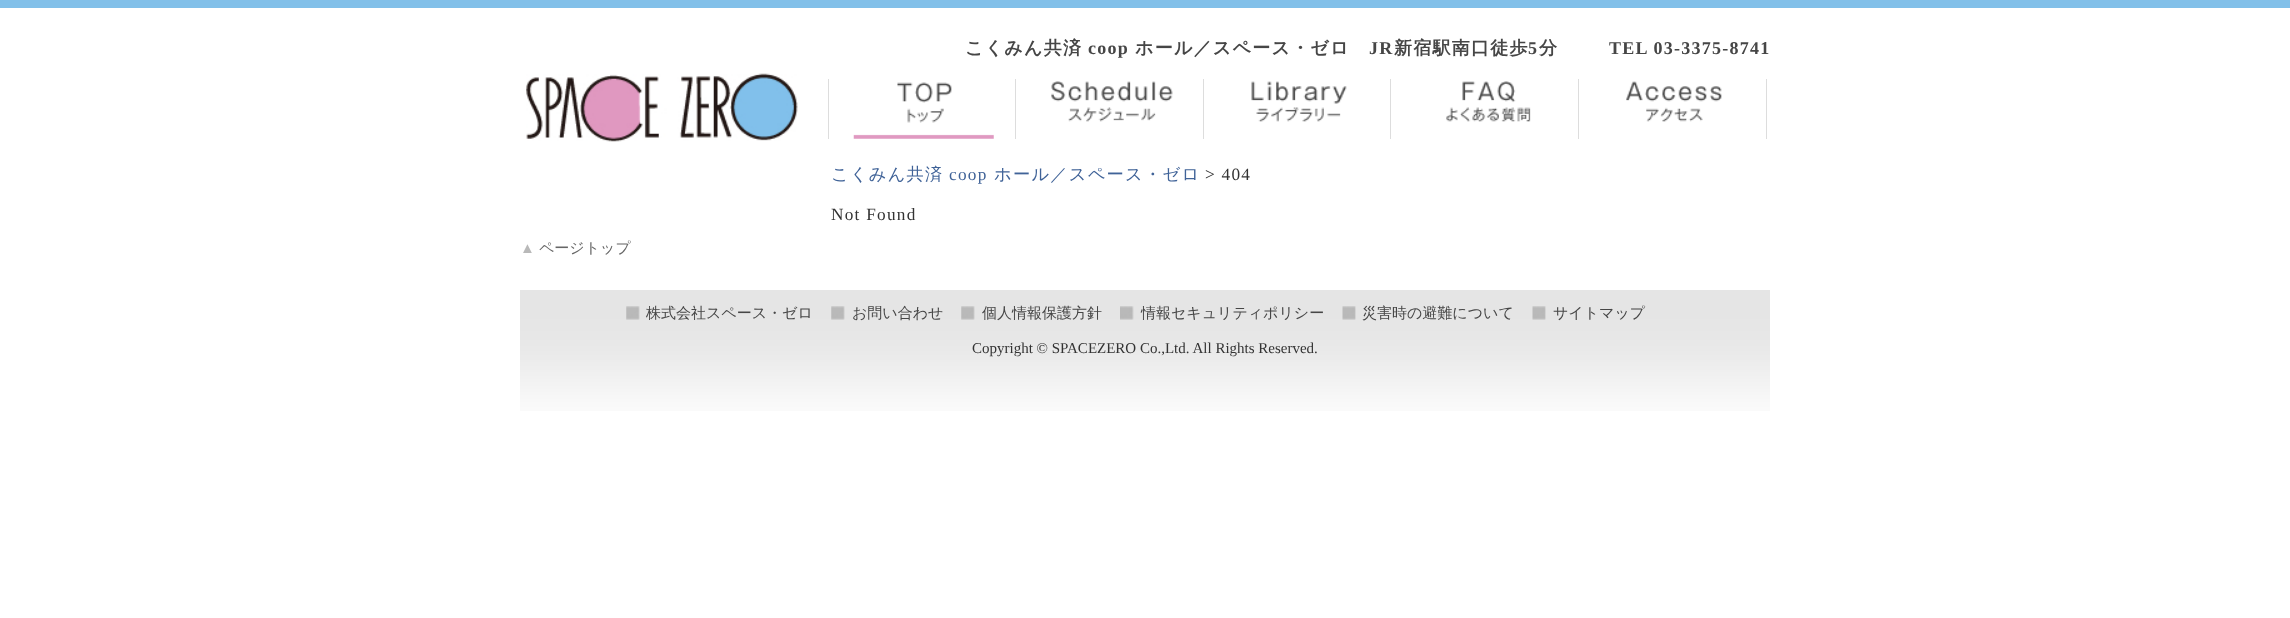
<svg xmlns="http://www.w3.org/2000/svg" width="2290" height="618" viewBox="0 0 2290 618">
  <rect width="100%" height="100%" fill="rgb(255,255,255)"/>
  <rect x="0" y="0" width="2290" height="8" fill="rgb(130,192,233)"/>
  <text x="965" y="54" font-family="WenQuanYi Zen Hei" font-size="18" font-weight="bold" letter-spacing="1.25" fill="rgb(70,70,70)">こくみん共済</text>
  <text x="1088" y="54" font-family="Liberation Serif" font-size="18" font-weight="bold" letter-spacing="1.25" fill="rgb(70,70,70)">coop</text>
  <text x="1135" y="54" font-family="WenQuanYi Zen Hei" font-size="18" font-weight="bold" letter-spacing="1.25" fill="rgb(70,70,70)">ホール／スペース・ゼロ</text>
  <text x="1369" y="54" font-family="Liberation Serif" font-size="18" font-weight="bold" letter-spacing="1.25" fill="rgb(70,70,70)">JR</text>
  <text x="1394" y="54" font-family="WenQuanYi Zen Hei" font-size="18" font-weight="bold" letter-spacing="1.25" fill="rgb(70,70,70)">新宿駅南口徒歩</text>
  <text x="1528" y="54" font-family="Liberation Serif" font-size="18" font-weight="bold" letter-spacing="1.25" fill="rgb(70,70,70)">5</text>
  <text x="1539" y="54" font-family="WenQuanYi Zen Hei" font-size="18" font-weight="bold" letter-spacing="1.25" fill="rgb(70,70,70)">分</text>
  <text x="1609" y="54" font-family="Liberation Serif" font-size="18" font-weight="bold" letter-spacing="1.25" fill="rgb(70,70,70)">TEL 03-3375-8741</text>
  <image x="526" y="73" width="272" height="69" href="pic1.png"/>
  <image x="853" y="82" width="141" height="57" href="pic2.png"/>
  <rect x="828" y="79" width="1" height="60" fill="rgb(221,221,221)"/>
  <image x="1051" y="81" width="122" height="41" href="pic3.png"/>
  <rect x="1015" y="79" width="1" height="60" fill="rgb(221,221,221)"/>
  <image x="1251" y="81" width="96" height="41" href="pic4.png"/>
  <rect x="1203" y="79" width="1" height="60" fill="rgb(221,221,221)"/>
  <image x="1446" y="81" width="85" height="41" href="pic5.png"/>
  <rect x="1390" y="79" width="1" height="60" fill="rgb(221,221,221)"/>
  <image x="1626" y="81" width="96" height="41" href="pic6.png"/>
  <rect x="1766" y="79" width="1" height="60" fill="rgb(221,221,221)"/>
  <rect x="1578" y="79" width="1" height="60" fill="rgb(221,221,221)"/>
  <text x="831" y="180" font-family="WenQuanYi Zen Hei" font-size="17.25" font-weight="500" letter-spacing="1.25" fill="rgb(64,99,152)">こくみん共済</text>
  <text x="949" y="180" font-family="Liberation Serif" font-size="17.25" letter-spacing="1.25" fill="rgb(64,99,152)">coop</text>
  <text x="994" y="180" font-family="WenQuanYi Zen Hei" font-size="17.25" font-weight="500" letter-spacing="1.25" fill="rgb(64,99,152)">ホール／スペース・ゼロ</text>
  <g font-family="Liberation Serif" font-size="17.25" letter-spacing="1.25" fill="rgb(51,51,51)">
    <text x="1205" y="180">&gt; 404</text>
    <text x="831" y="220">Not Found</text>
  </g>
  <text x="520" y="253" font-family="Liberation Serif" font-size="15" fill="rgb(185,185,185)">▲</text>
  <text x="539" y="253" font-family="WenQuanYi Zen Hei" font-size="15" font-weight="500" fill="rgb(102,102,102)">ページトップ</text>
  <image x="520" y="290" width="1250" height="121" href="pic7.png"/>
  <image x="626" y="306" width="14" height="14" href="pic8.png"/>
  <text x="646" y="318" font-family="WenQuanYi Zen Hei" font-size="15" font-weight="500" fill="rgb(70,70,70)">株式会社スペース・ゼロ</text>
  <image x="831" y="306" width="14" height="14" href="pic8.png"/>
  <text x="852" y="318" font-family="WenQuanYi Zen Hei" font-size="15" font-weight="500" fill="rgb(70,70,70)">お問い合わせ</text>
  <image x="961" y="306" width="14" height="14" href="pic8.png"/>
  <text x="982" y="318" font-family="WenQuanYi Zen Hei" font-size="15" font-weight="500" fill="rgb(70,70,70)">個人情報保護方針</text>
  <image x="1120" y="306" width="14" height="14" href="pic9.png"/>
  <text x="1141" y="318" font-family="WenQuanYi Zen Hei" font-size="15" font-weight="500" fill="rgb(70,70,70)">情報セキュリティポリシー</text>
  <image x="1342" y="306" width="14" height="14" href="pic10.png"/>
  <text x="1362" y="318" font-family="WenQuanYi Zen Hei" font-size="15" font-weight="500" fill="rgb(70,70,70)">災害時の避難について</text>
  <image x="1532" y="306" width="14" height="14" href="pic10.png"/>
  <text x="1553" y="318" font-family="WenQuanYi Zen Hei" font-size="15" font-weight="500" fill="rgb(70,70,70)">サイトマップ</text>
  <text x="972" y="353" font-family="Liberation Serif" font-size="15" fill="rgb(51,51,51)">Copyright © SPACEZERO Co.,Ltd. All Rights Reserved.</text>
</svg>
